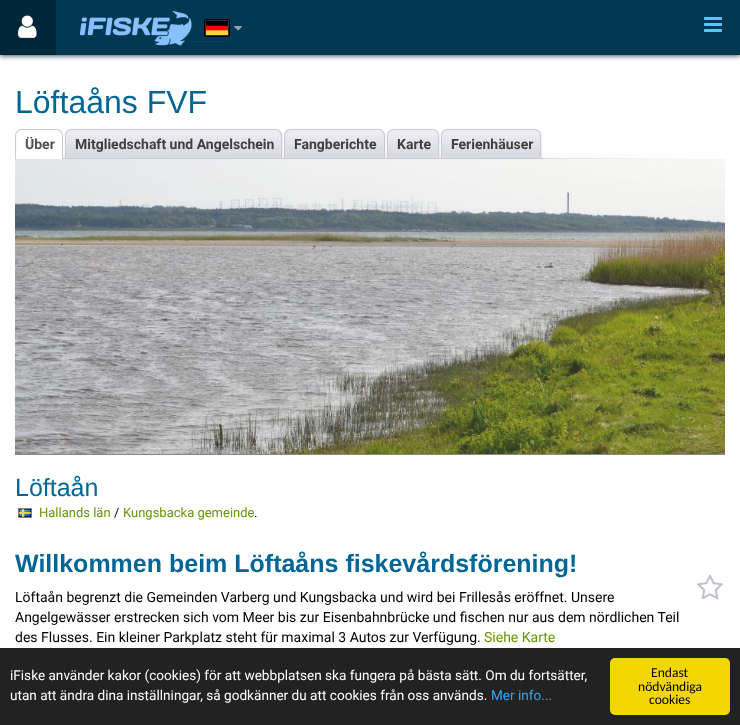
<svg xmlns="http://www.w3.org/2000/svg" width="740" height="725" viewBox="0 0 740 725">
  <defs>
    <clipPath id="clip1"><path d="M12 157H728V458H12ZM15 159H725V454H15Z" clip-rule="evenodd"/></clipPath>
  </defs>
  <rect width="100%" height="100%" fill="rgb(255,255,255)"/>
  <rect x="0" y="1" width="740" height="55" fill="rgb(64,80,96)" filter="blur(2.5px)"/>
  <rect x="0" y="0" width="740" height="55" fill="rgb(0,56,82)"/>
  <rect x="0" y="0" width="55" height="55" rx="2" fill="rgb(0,39,57)"/>
  <image x="18" y="15" width="19" height="23" href="pic1.png"/>
  <rect x="55" y="0" width="1" height="55" fill="rgb(0,39,57)"/>
  <image x="80" y="11" width="112" height="35" href="pic2.png"/>
  <path d="M192 15H230V14H192C190 14 189 15 189 17C189 16 190 15 192 15Z" fill="rgb(0,48,80)"/>
  <path d="M230 42V41H192C190 41 189 40 189 39C189 41 190 42 192 42Z" fill="rgb(6,63,100)"/>
  <path d="M234 16V17C237 17 243 16 245.5 18L246 21.5C246 20.5 246.5 18.5 245.5 18C245 16.5 244 16 243 16Z" fill="rgb(0,48,80)"/>
  <path d="M234 39V40H240C242 40 245 40.5 245.5 38C246.5 37.5 246 35.5 246 34.5L245.5 38C243 40 237 39 234 39Z" fill="rgb(6,63,100)"/>
  <rect x="205" y="20" width="26" height="18" rx="2" fill="rgb(32,48,64)" filter="blur(0.5px)"/>
  <rect x="204.5" y="19.5" width="25" height="17" rx="1.5" fill="none" stroke="rgb(0,0,0)"/>
  <image x="206" y="21" width="22" height="14" href="pic3.png"/>
  <image x="234" y="26" width="8" height="5" href="pic4.png"/>
  <image x="704" y="17" width="18" height="15" href="pic5.png"/>
  <text x="15" y="113" font-family="Liberation Sans" font-size="32" fill="rgb(0,102,150)">Löftaåns FVF</text>
  <image x="284" y="153" width="405" height="6" href="pic6.png"/>
  <image x="15" y="129" width="42" height="30" href="pic7.png"/>
  <image x="57" y="129" width="8" height="30" href="pic8.png"/>
  <text x="25" y="149" font-family="Roboto" font-size="14" font-weight="bold" fill="rgb(80,80,80)">Über</text>
  <image x="65" y="129" width="219" height="30" href="pic9.png"/>
  <image x="277" y="129" width="7" height="29" href="pic10.png"/>
  <text x="75" y="149" font-family="Roboto" font-size="14" font-weight="bold" fill="rgb(64,64,64)">Mitgliedschaft und Angelschein</text>
  <image x="284" y="129" width="96" height="29" href="pic11.png"/>
  <image x="380" y="129" width="7" height="29" href="pic12.png"/>
  <text x="294" y="149" font-family="Roboto" font-size="14" font-weight="bold" fill="rgb(64,64,64)">Fangberichte</text>
  <image x="387" y="129" width="47" height="29" href="pic13.png"/>
  <image x="434" y="129" width="7" height="29" href="pic10.png"/>
  <text x="397" y="149" font-family="Roboto" font-size="14" font-weight="bold" fill="rgb(64,64,64)">Karte</text>
  <image x="441" y="129" width="102" height="30" href="pic14.png"/>
  <image x="536" y="129" width="7" height="29" href="pic10.png"/>
  <text x="451" y="149" font-family="Roboto" font-size="14" font-weight="bold" fill="rgb(64,64,64)">Ferienhäuser</text>
  <g clip-path="url(#clip1)">
    <rect x="15" y="160" width="710" height="295" fill="rgb(136,136,136)" filter="blur(0.5px)"/>
  </g>
  <image x="15" y="159" width="710" height="295" href="pic15.png"/>
  <text x="15" y="496" font-family="Liberation Sans" font-size="25" fill="rgb(0,102,150)">Löftaån</text>
  <rect x="18.5" y="508.5" width="13" height="9" fill="none" stroke="rgb(128,128,128)"/>
  <image x="19" y="509" width="12" height="8" href="pic16.png"/>
  <text x="39" y="517" font-family="Roboto" font-size="13" fill="rgb(102,150,0)">Hallands län</text>
  <text x="114" y="517" font-family="Roboto" font-size="13" fill="rgb(0,0,0)">/</text>
  <text x="123" y="517" font-family="Roboto" font-size="13" fill="rgb(102,150,0)">Kungsbacka gemeinde</text>
  <text x="254" y="517" font-family="Roboto" font-size="13" fill="rgb(0,0,0)">.</text>
  <text x="15" y="572" font-family="Liberation Sans" font-size="25" font-weight="bold" fill="rgb(0,102,150)">Willkommen beim Löftaåns fiskevårdsförening!</text>
  <g font-family="Roboto" font-size="14" fill="rgb(0,0,0)">
    <text>
      <tspan x="15" y="602">Löftaån begrenzt die Gemeinden Varberg und Kungsbacka und wird bei Frillesås eröffnet. Unsere</tspan>
      <tspan x="15" y="622">Angelgewässer erstrecken sich vom Meer bis zur Eisenbahnbrücke und fischen nur aus dem nördlichen Teil</tspan>
      <tspan x="15" y="642">des Flusses. Ein kleiner Parkplatz steht für maximal 3 Autos zur Verfügung.</tspan>
    </text>
  </g>
  <text x="484" y="642" font-family="Roboto" font-size="14" fill="rgb(102,150,0)">Siehe Karte</text>
  <image x="697" y="574" width="26" height="26" href="pic17.png"/>
  <rect x="0" y="648" width="740" height="77" fill="rgb(34,34,34)"/>
  <g font-family="Roboto" font-size="13.6" fill="rgb(255,255,255)">
    <text>
      <tspan x="10" y="680">iFiske använder kakor (cookies) för att webbplatsen ska fungera på bästa sätt. Om du fortsätter,</tspan>
      <tspan x="10" y="700">utan att ändra dina inställningar, så godkänner du att cookies från oss används.</tspan>
    </text>
  </g>
  <text x="491" y="700" font-family="Roboto" font-size="13.6" fill="rgb(49,168,240)">Mer info...</text>
  <rect x="610" y="658" width="120" height="57" rx="5" fill="rgb(241,214,0)"/>
  <g font-family="Carlito" font-size="13.6" fill="rgb(0,0,0)">
    <text x="651" y="677">Endast</text>
    <text x="638" y="691">nödvändiga</text>
    <text x="649" y="704">cookies</text>
  </g>
</svg>
